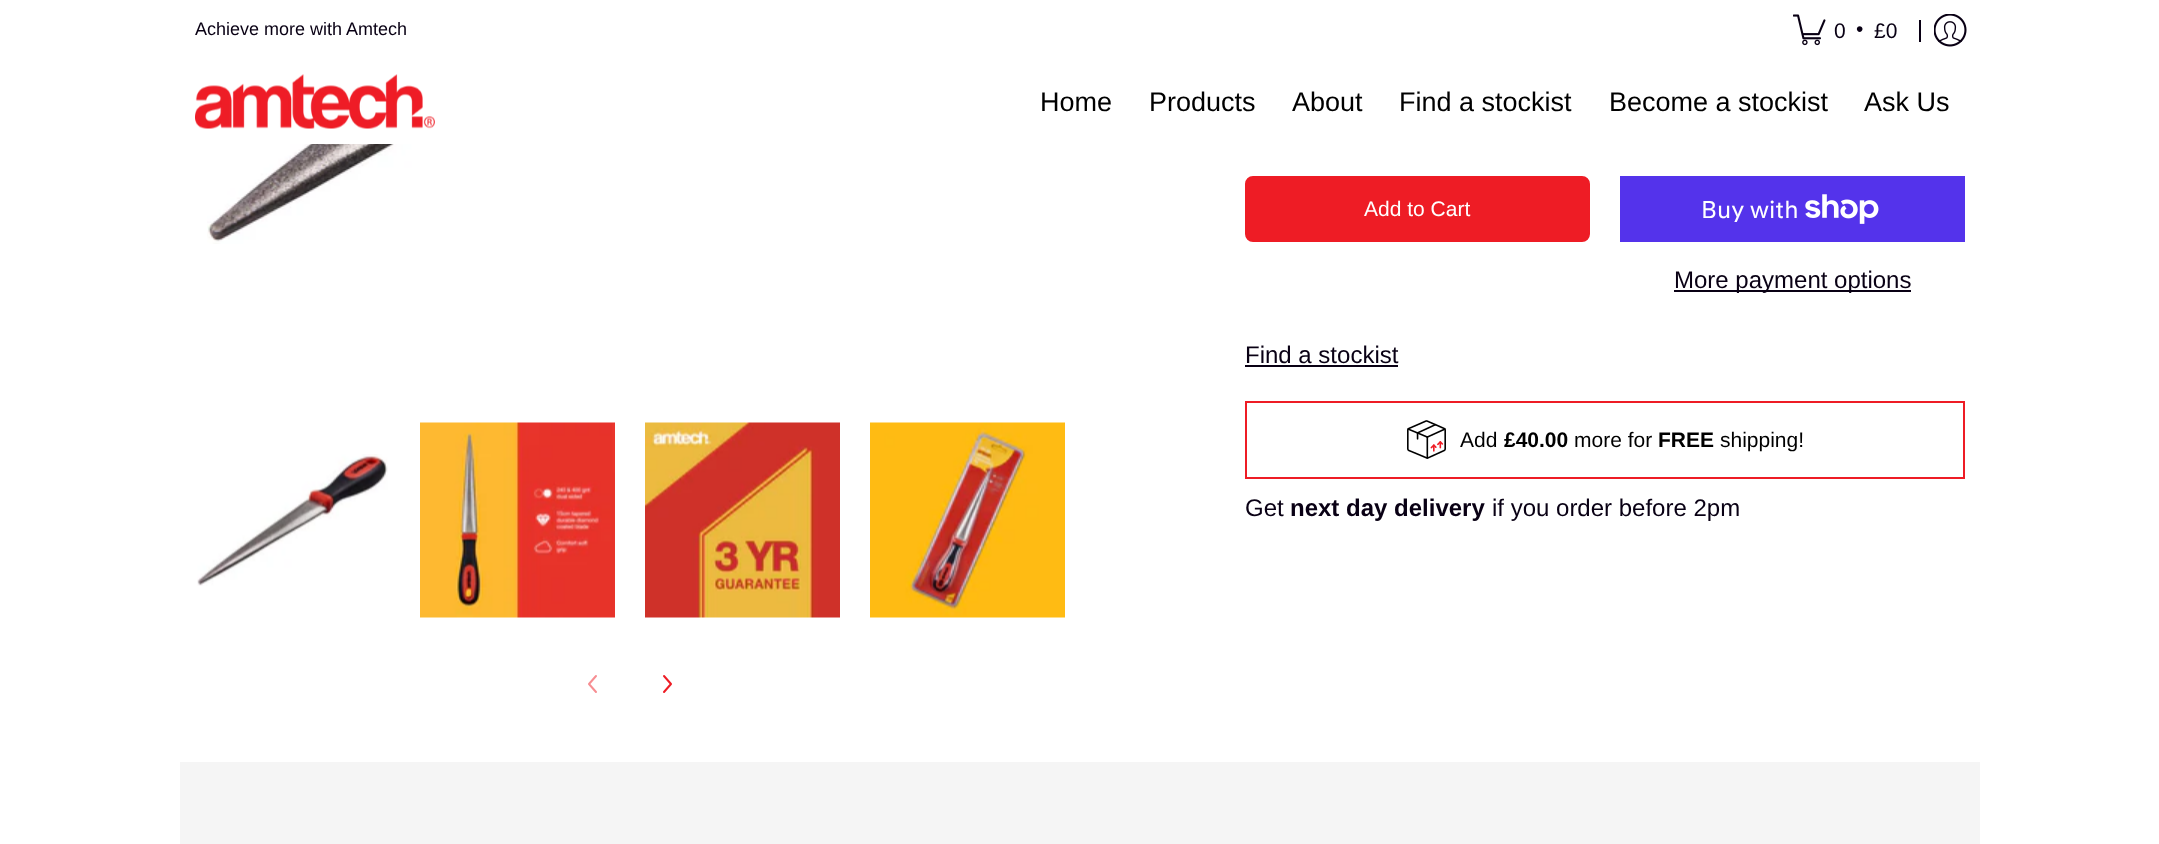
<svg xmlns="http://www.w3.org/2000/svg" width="2159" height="844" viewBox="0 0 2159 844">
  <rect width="100%" height="100%" fill="rgb(255,255,255)"/>
  <text x="195" y="35" font-family="Liberation Sans" font-size="18" fill="rgb(9,0,20)">Achieve more with Amtech</text>
  <image x="1793" y="14" width="33" height="32" href="pic1.png"/>
  <g font-family="Liberation Sans" font-size="21" fill="rgb(9,0,20)">
    <text x="1834" y="38">0</text>
    <text x="1856" y="36">•</text>
    <text x="1874" y="38">£0</text>
  </g>
  <rect x="1919" y="20" width="2" height="22" fill="rgb(9,0,20)"/>
  <image x="1934" y="14" width="33" height="33" href="pic2.png"/>
  <image x="195" y="74" width="240" height="55" href="pic3.png"/>
  <g font-family="Liberation Sans" font-size="27" fill="rgb(0,0,0)">
    <text x="1040" y="111">Home</text>
    <text x="1149" y="111">Products</text>
    <text x="1292" y="111">About</text>
    <text x="1399" y="111">Find a stockist</text>
    <text x="1609" y="111">Become a stockist</text>
    <text x="1864" y="111">Ask Us</text>
  </g>
  <image x="207" y="144" width="432" height="100" href="pic4.png"/>
  <image x="197" y="454" width="191" height="132" href="pic5.png"/>
  <image x="420" y="422" width="195" height="196" href="pic6.png"/>
  <image x="645" y="422" width="195" height="196" href="pic7.png"/>
  <image x="870" y="422" width="195" height="196" href="pic8.png"/>
  <path d="M596 676L589 684L596 692" fill="none" stroke="rgb(247,142,146)" stroke-width="2" stroke-linecap="round" stroke-linejoin="round"/>
  <path d="M664 692L671 684L664 676" fill="none" stroke="rgb(238,28,37)" stroke-width="2" stroke-linecap="round" stroke-linejoin="round"/>
  <rect x="1246" y="177" width="343" height="64" rx="7" fill="rgb(238,28,37)" stroke="rgb(238,28,37)" stroke-width="2"/>
  <text x="1364" y="216" font-family="Liberation Sans" font-size="21" fill="rgb(255,255,255)">Add to Cart</text>
  <rect x="1620" y="176" width="345" height="66" fill="rgb(84,51,235)"/>
  <text x="1701" y="218" font-family="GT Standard" font-size="24" fill="rgb(255,255,255)">Buy with</text>
  <image x="1805" y="194" width="74" height="30" href="pic9.png"/>
  <rect x="1674" y="290" width="237" height="2" fill="rgb(9,0,20)"/>
  <g font-family="Liberation Sans" font-size="24" fill="rgb(9,0,20)">
    <text x="1674" y="288">More payment options</text>
    <text x="1245" y="363">Find a stockist</text>
  </g>
  <rect x="1245" y="365" width="153" height="2" fill="rgb(9,0,20)"/>
  <rect x="1246" y="402" width="718" height="76" fill="none" stroke="rgb(238,28,37)" stroke-width="2"/>
  <image x="1407" y="420" width="39" height="39" href="pic10.png"/>
  <text x="1460" y="447" font-family="Liberation Sans" font-size="21" fill="rgb(0,0,0)">Add</text>
  <text x="1504" y="447" font-family="Liberation Sans" font-size="21" font-weight="bold" fill="rgb(0,0,0)">£40.00</text>
  <text x="1574" y="447" font-family="Liberation Sans" font-size="21" fill="rgb(0,0,0)">more for</text>
  <text x="1658" y="447" font-family="Liberation Sans" font-size="21" font-weight="bold" fill="rgb(0,0,0)">FREE</text>
  <text x="1720" y="447" font-family="Liberation Sans" font-size="21" fill="rgb(0,0,0)">shipping!</text>
  <text x="1245" y="516" font-family="Liberation Sans" font-size="24" fill="rgb(9,0,20)">Get</text>
  <text x="1290" y="516" font-family="Liberation Sans" font-size="24" font-weight="bold" fill="rgb(9,0,20)">next day delivery</text>
  <text x="1492" y="516" font-family="Liberation Sans" font-size="24" fill="rgb(9,0,20)">if you order before 2pm</text>
  <rect x="180" y="762" width="1800" height="82" fill="rgb(245,245,245)"/>
</svg>
